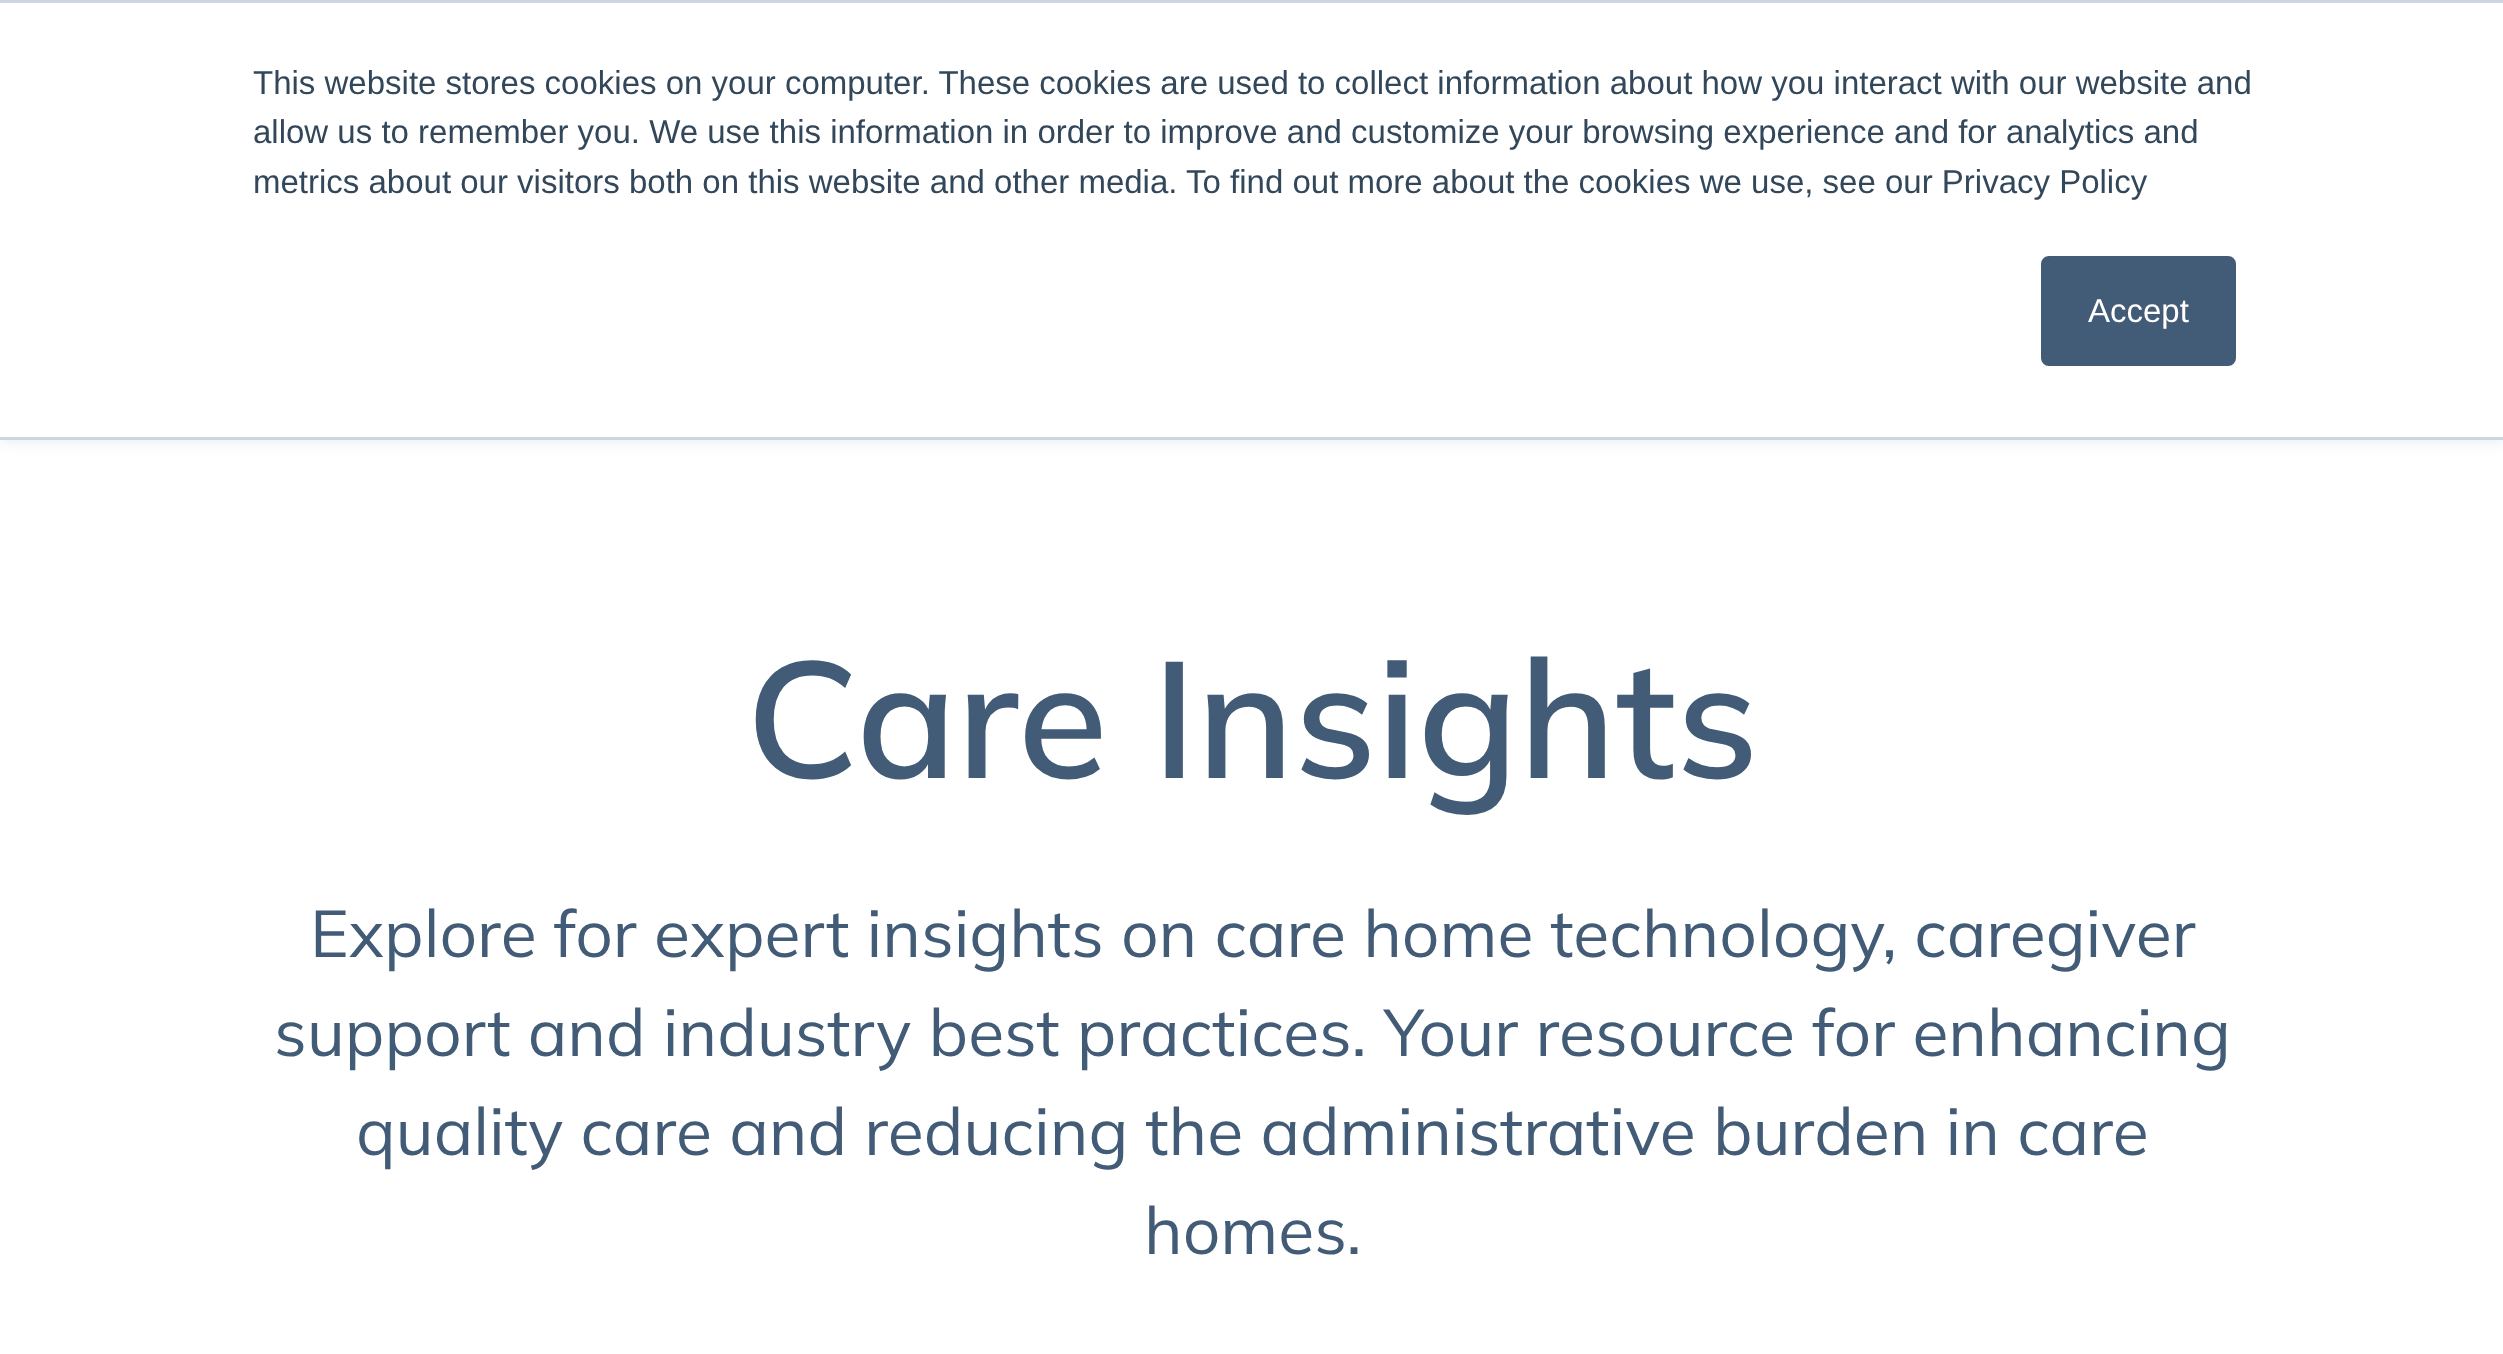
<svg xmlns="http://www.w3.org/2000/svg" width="2503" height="1354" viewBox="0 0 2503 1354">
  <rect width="100%" height="100%" fill="rgb(255,255,255)"/>
  <rect x="0" y="3" width="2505" height="440" fill="rgb(234,240,246)" filter="blur(7px)"/>
  <rect x="0" y="3" width="2503" height="434" fill="rgb(255,255,255)"/>
  <rect x="0" y="0" width="2503" height="3" fill="rgb(203,214,226)"/>
  <rect x="0" y="437" width="2503" height="3" fill="rgb(203,214,226)"/>
  <g font-family="Liberation Sans" font-size="33" fill="rgb(51,71,91)">
    <text>
      <tspan x="253" y="94">This website stores cookies on your computer. These cookies are used to collect information about how you interact with our website and</tspan>
      <tspan x="253" y="143">allow us to remember you. We use this information in order to improve and customize your browsing experience and for analytics and</tspan>
      <tspan x="253" y="193">metrics about our visitors both on this website and other media. To find out more about the cookies we use, see our Privacy Policy</tspan>
    </text>
  </g>
  <rect x="2042.5" y="257.5" width="192" height="107" rx="6.5" fill="rgb(66,91,118)" stroke="rgb(66,91,118)" stroke-width="3"/>
  <text x="2088" y="322" font-family="Liberation Sans" font-size="33" fill="rgb(255,255,255)">Accept</text>
  <text x="746" y="778" font-family="Mulish" font-size="165" font-weight="600" fill="rgb(66,91,118)">Care Insights</text>
  <g font-family="Mulish" font-size="66" fill="rgb(66,91,118)">
    <text x="310" y="957">Explore for expert insights on care home technology, caregiver</text>
    <text x="274" y="1056">support and industry best practices. Your resource for enhancing</text>
    <text x="356" y="1155">quality care and reducing the administrative burden in care</text>
    <text x="1144" y="1254">homes.</text>
  </g>
</svg>
